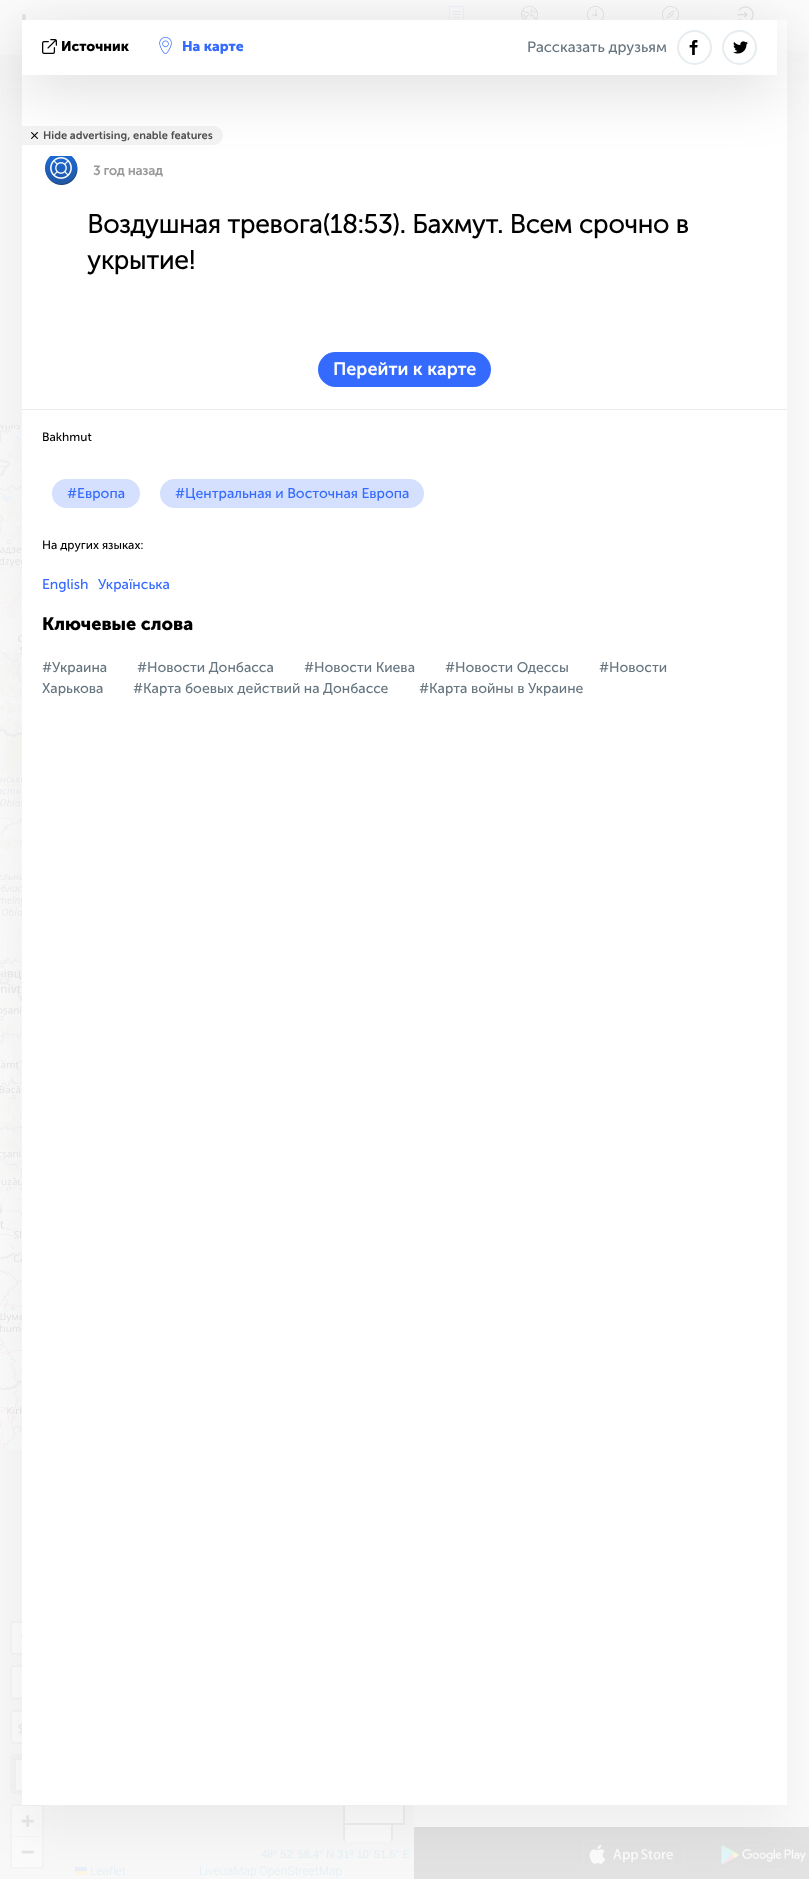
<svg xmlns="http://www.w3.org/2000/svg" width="809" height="1879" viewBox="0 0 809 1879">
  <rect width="100%" height="100%" fill="rgb(248,248,248)"/>
  <rect x="0" y="0" width="414" height="55" fill="rgb(251,251,251)"/>
  <image x="22" y="14" width="4" height="6" href="pic7.png"/>
  <rect x="414" y="0" width="395" height="1827" fill="rgb(251,251,251)"/>
  <image x="449" y="6" width="15" height="14" href="pic8.png"/>
  <image x="521" y="6" width="17" height="14" href="pic9.png"/>
  <image x="587" y="6" width="17" height="14" href="pic10.png"/>
  <image x="662" y="6" width="17" height="14" href="pic11.png"/>
  <image x="737" y="6" width="17" height="14" href="pic12.png"/>
  <image x="787" y="51" width="22" height="43" href="pic13.png"/>
  <rect x="414" y="1827" width="395" height="52" fill="rgb(226,226,226)"/>
  <image x="583" y="1840" width="101" height="30" href="pic14.png"/>
  <image x="714" y="1840" width="95" height="30" href="pic15.png"/>
  <rect x="345" y="1825" width="46" height="16" fill="rgb(251,251,251)"/>
  <image x="0" y="425" width="22" height="256" href="pic16.png"/>
  <image x="0" y="681" width="22" height="256" href="pic17.png"/>
  <image x="0" y="937" width="22" height="256" href="pic18.png"/>
  <image x="0" y="1193" width="22" height="256" href="pic19.png"/>
  <rect x="11" y="1622" width="32" height="32" rx="3" fill="none" stroke="rgb(244,244,244)" stroke-width="2"/>
  <rect x="12" y="1623" width="30" height="30" rx="2" fill="rgb(251,251,251)"/>
  <image x="21" y="1635" width="1" height="3" href="pic20.png"/>
  <rect x="11" y="1666" width="32" height="33" rx="3" fill="none" stroke="rgb(244,244,244)" stroke-width="2"/>
  <path d="M14 1667H40C41 1667 42 1668 42 1669V1698H12V1669C12 1668 13 1667 14 1667Z" fill="rgb(251,251,251)"/>
  <rect x="12" y="1697" width="10" height="1" fill="rgb(246,246,246)"/>
  <rect x="11" y="1711" width="32" height="32" rx="3" fill="none" stroke="rgb(244,244,244)" stroke-width="2"/>
  <rect x="12" y="1712" width="30" height="30" rx="2" fill="rgb(251,251,251)"/>
  <image x="18" y="1723" width="4" height="11" href="pic21.png"/>
  <rect x="11" y="1755" width="40" height="38" rx="3" fill="none" stroke="rgb(244,244,244)" stroke-width="2"/>
  <rect x="13" y="1757" width="36" height="34" rx="3" fill="none" stroke="rgb(244,244,244)" stroke-width="2"/>
  <path d="M16 1760H46V1790H16V1788Z" fill="rgb(251,251,251)"/>
  <rect x="15" y="1758" width="7" height="2" fill="rgba(226,226,226,0.2)"/>
  <rect x="14" y="1759" width="2" height="30" fill="rgba(226,226,226,0.2)"/>
  <rect x="11" y="1805" width="32" height="63" rx="3" fill="none" stroke="rgb(244,244,244)" stroke-width="2"/>
  <path d="M14 1806H40C41 1806 42 1807 42 1808V1837H12V1808C12 1807 13 1806 14 1806Z" fill="rgb(251,251,251)"/>
  <rect x="12" y="1836" width="30" height="1" fill="rgb(246,246,246)"/>
  <path d="M12 1837H42V1865C42 1866 41 1867 40 1867H14C13 1867 12 1866 12 1865Z" fill="rgb(251,251,251)"/>
  <rect x="345" y="1806" width="58" height="17" fill="rgb(251,251,251)"/>
  <rect x="403" y="1806" width="2" height="19" fill="rgb(238,238,238)"/>
  <rect x="393" y="1823" width="12" height="2" fill="rgb(238,238,238)"/>
  <rect x="343" y="1806" width="2" height="19" fill="rgb(238,238,238)"/>
  <rect x="343" y="1823" width="50" height="2" fill="rgb(238,238,238)"/>
  <rect x="391" y="1823" width="2" height="18" fill="rgb(238,238,238)"/>
  <rect x="343" y="1823" width="2" height="18" fill="rgb(238,238,238)"/>
  <rect x="75" y="1867" width="12" height="4" fill="rgb(234,238,248)"/>
  <rect x="75" y="1871" width="12" height="3" fill="rgb(251,247,226)"/>
  <rect x="75" y="1874" width="12" height="1" fill="rgb(248,245,226)"/>
  <rect x="22" y="45" width="765" height="1785" fill="rgba(0,0,0,0.05)" filter="blur(25px)"/>
  <rect x="22" y="20" width="765" height="1785" fill="rgb(255,255,255)"/>
  <path d="M22 126H213.5C218.5 126 223 130.5 223 135.5C223 140.5 218.5 145 213.5 145H22Z" fill="rgb(243,243,243)"/>
  <image x="31" y="132" width="7" height="7" href="pic5.png"/>
  <image x="45" y="156" width="33" height="29" href="pic6.png"/>
  <rect x="22" y="35" width="755" height="55" fill="rgba(16,15,15,0.14)" filter="blur(30px)"/>
  <rect x="22" y="20" width="755" height="55" fill="rgb(255,255,255)"/>
  <image x="42" y="39" width="15" height="15" href="pic1.png"/>
  <text x="61" y="51" font-family="'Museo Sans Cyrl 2'" font-size="14" font-weight="bold" fill="rgb(0,0,0)">Источник</text>
  <image x="159" y="37" width="13" height="17" href="pic2.png"/>
  <text x="182" y="51" font-family="'Museo Sans Cyrl 2'" font-size="14" font-weight="bold" fill="rgb(52,106,254)">На карте</text>
  <text x="527" y="52" font-family="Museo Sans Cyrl" font-size="15" fill="rgb(102,117,127)">Рассказать друзьям</text>
  <image x="689" y="40" width="9" height="15" href="pic3.png"/>
  <circle cx="694.5" cy="47.5" r="16.5" fill="none" stroke="rgb(230,236,239)" stroke-width="2"/>
  <image x="733" y="41" width="15" height="13" href="pic4.png"/>
  <circle cx="739.5" cy="47.5" r="16.5" fill="none" stroke="rgb(230,236,239)" stroke-width="2"/>
  <text x="43" y="139" font-family="Museo Sans Cyrl" font-size="11" font-weight="600" fill="rgb(80,80,80)">Hide advertising, enable features</text>
  <text x="93" y="175" font-family="'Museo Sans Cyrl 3'" font-size="13" font-weight="bold" fill="rgb(153,153,153)">3 год назад</text>
  <g font-family="Museo Sans Cyrl" font-size="26" font-weight="bold" fill="rgb(0,0,0)">
    <text>
      <tspan x="87" y="233">Воздушная тревога(18:53). Бахмут. Всем срочно в</tspan>
      <tspan x="87" y="269">укрытие!</tspan>
    </text>
  </g>
  <rect x="22" y="409" width="765" height="1" fill="rgb(236,236,236)"/>
  <rect x="318" y="352" width="173" height="35" rx="17.5" fill="rgb(52,106,254)"/>
  <text x="333" y="375" font-family="Museo Sans Cyrl" font-size="18" font-weight="600" fill="rgb(255,255,255)">Перейти к карте</text>
  <text x="42" y="441" font-family="Museo Sans Cyrl" font-size="12" fill="rgb(0,0,0)">Bakhmut</text>
  <rect x="52" y="479" width="88" height="29" rx="14.5" fill="rgb(213,224,255)"/>
  <text x="67" y="498" font-family="Museo Sans Cyrl" font-size="14" fill="rgb(52,106,254)">#Европа</text>
  <rect x="160" y="479" width="264" height="29" rx="14.5" fill="rgb(213,224,255)"/>
  <text x="175" y="498" font-family="Museo Sans Cyrl" font-size="14" fill="rgb(52,106,254)">#Центральная и Восточная Европа</text>
  <text x="42" y="549" font-family="Museo Sans Cyrl" font-size="12" fill="rgb(0,0,0)">На других языках:</text>
  <g font-family="Museo Sans Cyrl" font-size="14" fill="rgb(52,106,254)">
    <text x="42" y="589">English</text>
    <text x="98" y="589">Українська</text>
  </g>
  <text x="42" y="630" font-family="'Museo Sans Cyrl 2'" font-size="18" font-weight="bold" fill="rgb(0,0,0)">Ключевые слова</text>
  <g font-family="Museo Sans Cyrl" font-size="14" fill="rgb(102,117,127)">
    <text x="42" y="672">#Украина</text>
    <text x="137" y="672">#Новости Донбасса</text>
    <text x="304" y="672">#Новости Киева</text>
    <text x="445" y="672">#Новости Одессы</text>
    <text x="599" y="672">#Новости</text>
    <text x="42" y="693">Харькова</text>
    <text x="133" y="693">#Карта боевых действий на Донбассе</text>
    <text x="419" y="693">#Карта войны в Украине</text>
  </g>
  <g font-family="DejaVu Sans Mono" font-size="22" font-weight="bold" fill="rgb(226,226,226)">
    <text>
      <tspan x="21" y="1828">+</tspan>
      <tspan x="21" y="1859">−</tspan>
    </text>
  </g>
  <text x="261" y="1858" font-family="Liberation Sans" font-size="11" fill="rgb(226,238,243)">48º 52' 58.4'' N 31º 10' 51.6'' E</text>
  <g font-family="Roboto" font-size="12" font-weight="300" fill="rgb(226,238,243)">
    <text x="90" y="1875">Leaflet</text>
    <text x="199" y="1875">LiveuaMap OpenStreetMap</text>
  </g>
</svg>
